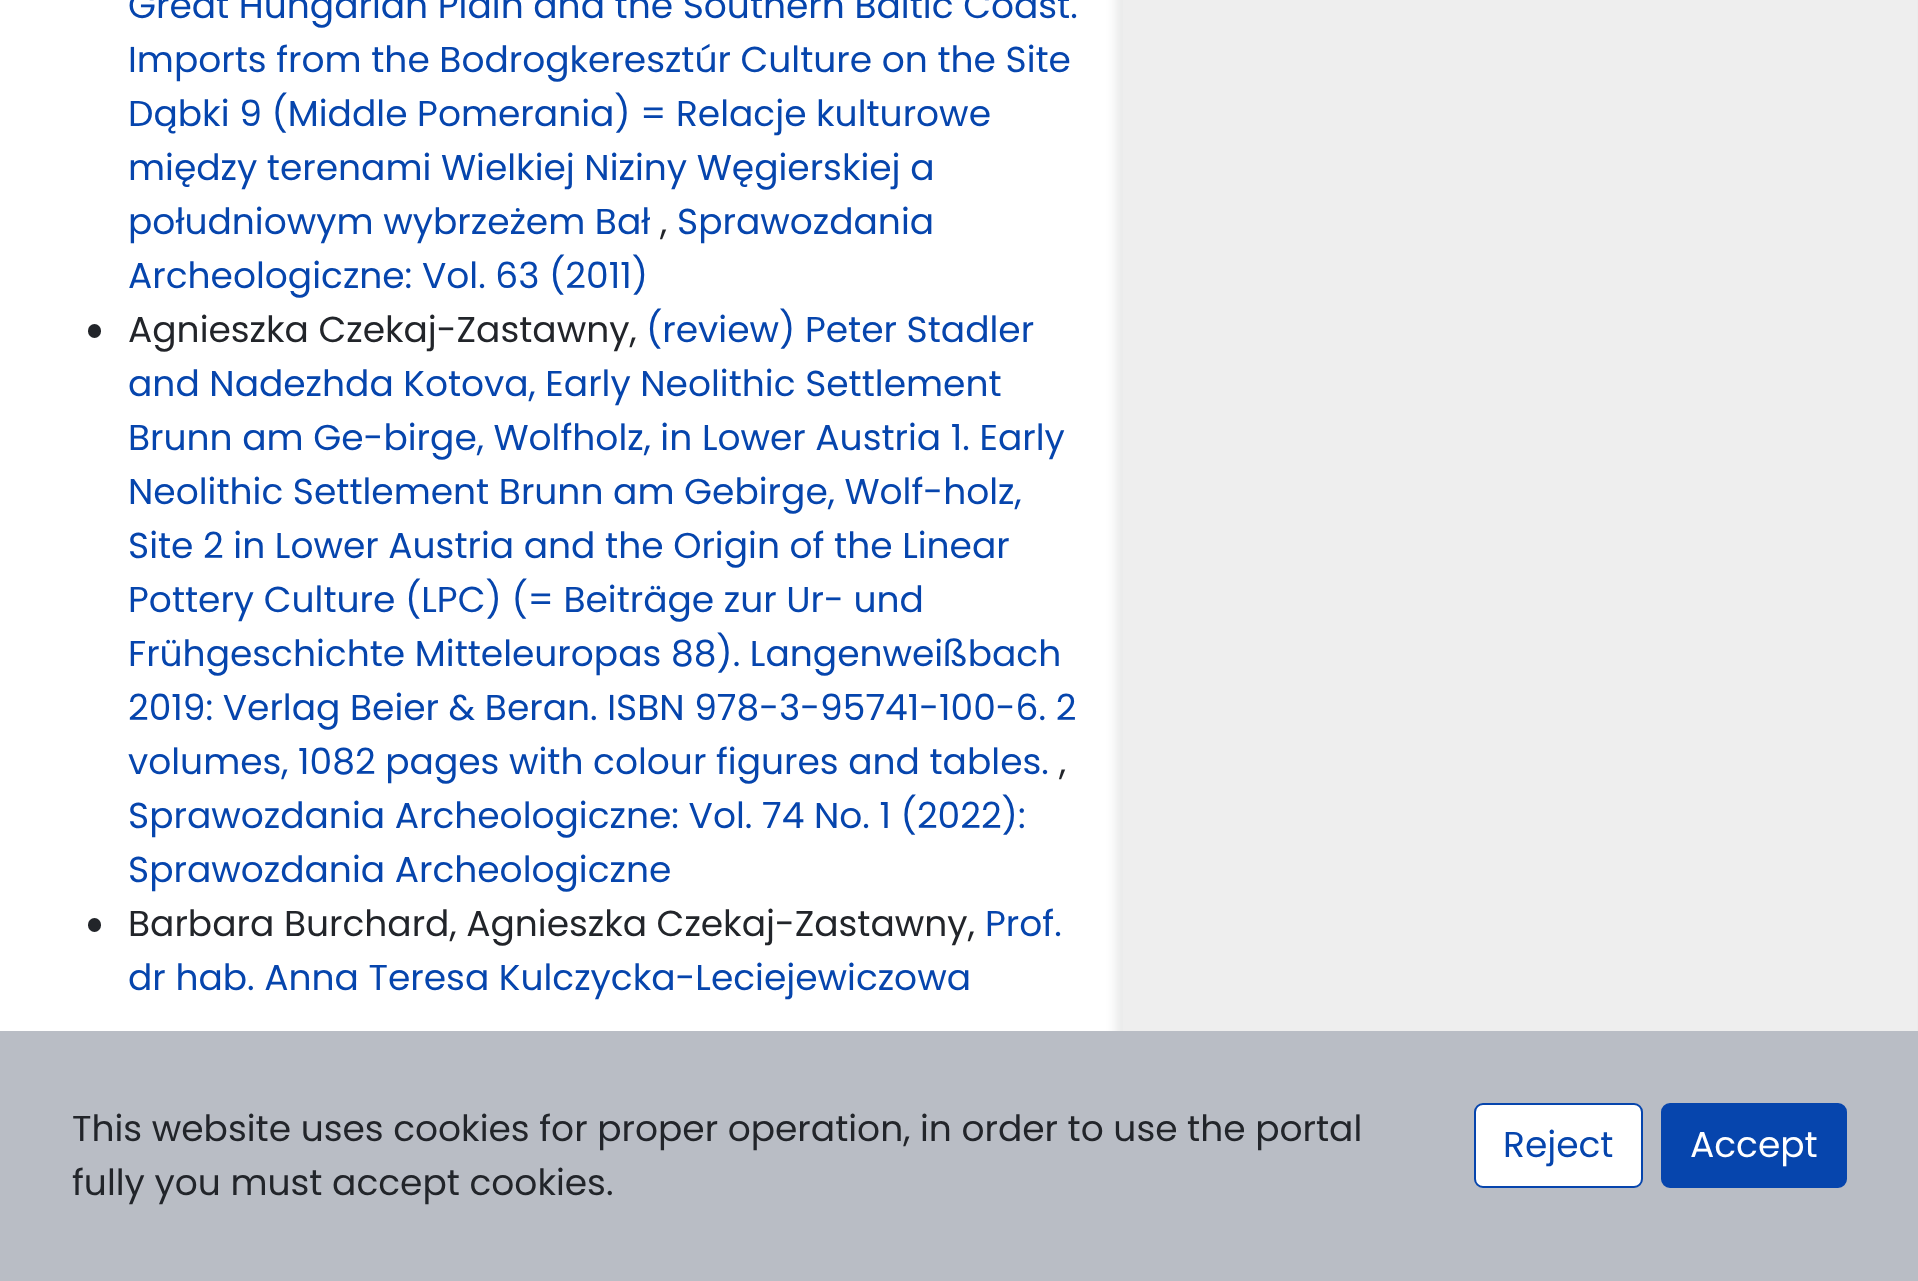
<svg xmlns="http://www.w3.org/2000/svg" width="1918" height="1281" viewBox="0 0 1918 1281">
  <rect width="100%" height="100%" fill="rgb(255,255,255)"/>
  <g font-family="Poppins" font-size="36" fill="rgb(6,69,173)">
    <text>
      <tspan x="128" y="18">Great Hungarian Plain and the Southern Baltic Coast.</tspan>
      <tspan x="128" y="72">Imports from the Bodrogkeresztúr Culture on the Site</tspan>
      <tspan x="128" y="126">Dąbki 9 (Middle Pomerania) = Relacje kulturowe</tspan>
      <tspan x="128" y="180">między terenami Wielkiej Niziny Węgierskiej a</tspan>
      <tspan x="128" y="234">południowym wybrzeżem Bał</tspan>
    </text>
  </g>
  <text x="660" y="234" font-family="Poppins" font-size="36" fill="rgb(34,37,42)">,</text>
  <g font-family="Poppins" font-size="36" fill="rgb(6,69,173)">
    <text x="677" y="234">Sprawozdania</text>
    <text x="128" y="288">Archeologiczne: Vol. 63 (2011)</text>
  </g>
  <rect x="88" y="324" width="13" height="14" rx="6.5" fill="rgb(34,37,42)"/>
  <text x="128" y="342" font-family="Poppins" font-size="36" fill="rgb(34,37,42)">Agnieszka Czekaj-Zastawny,</text>
  <g font-family="Poppins" font-size="36" fill="rgb(6,69,173)">
    <text x="646" y="342">(review) Peter Stadler</text>
    <text>
      <tspan x="128" y="396">and Nadezhda Kotova, Early Neolithic Settlement</tspan>
      <tspan x="128" y="450">Brunn am Ge-birge, Wolfholz, in Lower Austria 1. Early</tspan>
      <tspan x="128" y="504">Neolithic Settlement Brunn am Gebirge, Wolf-holz,</tspan>
      <tspan x="128" y="558">Site 2 in Lower Austria and the Origin of the Linear</tspan>
      <tspan x="128" y="612">Pottery Culture (LPC) (= Beiträge zur Ur- und</tspan>
      <tspan x="128" y="666">Frühgeschichte Mitteleuropas 88). Langenweißbach</tspan>
      <tspan x="128" y="720">2019: Verlag Beier &amp; Beran. ISBN 978-3-95741-100-6. 2</tspan>
      <tspan x="128" y="774">volumes, 1082 pages with colour figures and tables.</tspan>
    </text>
  </g>
  <text x="1059" y="774" font-family="Poppins" font-size="36" fill="rgb(34,37,42)">,</text>
  <g font-family="Poppins" font-size="36" fill="rgb(6,69,173)">
    <text>
      <tspan x="128" y="828">Sprawozdania Archeologiczne: Vol. 74 No. 1 (2022):</tspan>
      <tspan x="128" y="882">Sprawozdania Archeologiczne</tspan>
    </text>
  </g>
  <rect x="88" y="918" width="13" height="14" rx="6.5" fill="rgb(34,37,42)"/>
  <text x="128" y="936" font-family="Poppins" font-size="36" fill="rgb(34,37,42)">Barbara Burchard, Agnieszka Czekaj-Zastawny,</text>
  <g font-family="Poppins" font-size="36" fill="rgb(6,69,173)">
    <text x="985" y="936">Prof.</text>
    <text x="128" y="990">dr hab. Anna Teresa Kulczycka-Leciejewiczowa</text>
  </g>
  <rect x="1116" y="-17" width="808" height="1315" fill="rgba(34,37,42,0.1)" filter="blur(5.5px)"/>
  <rect x="1123" y="0" width="794" height="1031" fill="rgb(238,238,238)"/>
  <rect x="0" y="1031" width="1918" height="250" fill="rgb(185,189,197)"/>
  <g font-family="Poppins" font-size="36" fill="rgb(34,37,42)">
    <text>
      <tspan x="72" y="1141">This website uses cookies for proper operation, in order to use the portal</tspan>
      <tspan x="72" y="1195">fully you must accept cookies.</tspan>
    </text>
  </g>
  <rect x="1475" y="1104" width="167" height="83" rx="8" fill="rgb(255,255,255)" stroke="rgb(6,69,173)" stroke-width="2"/>
  <text x="1503" y="1157" font-family="Poppins" font-size="36" fill="rgb(6,69,173)">Reject</text>
  <rect x="1662" y="1104" width="184" height="83" rx="8" fill="rgb(6,69,173)" stroke="rgb(6,69,173)" stroke-width="2"/>
  <text x="1690" y="1157" font-family="Poppins" font-size="36" fill="rgb(255,255,255)">Accept</text>
</svg>
